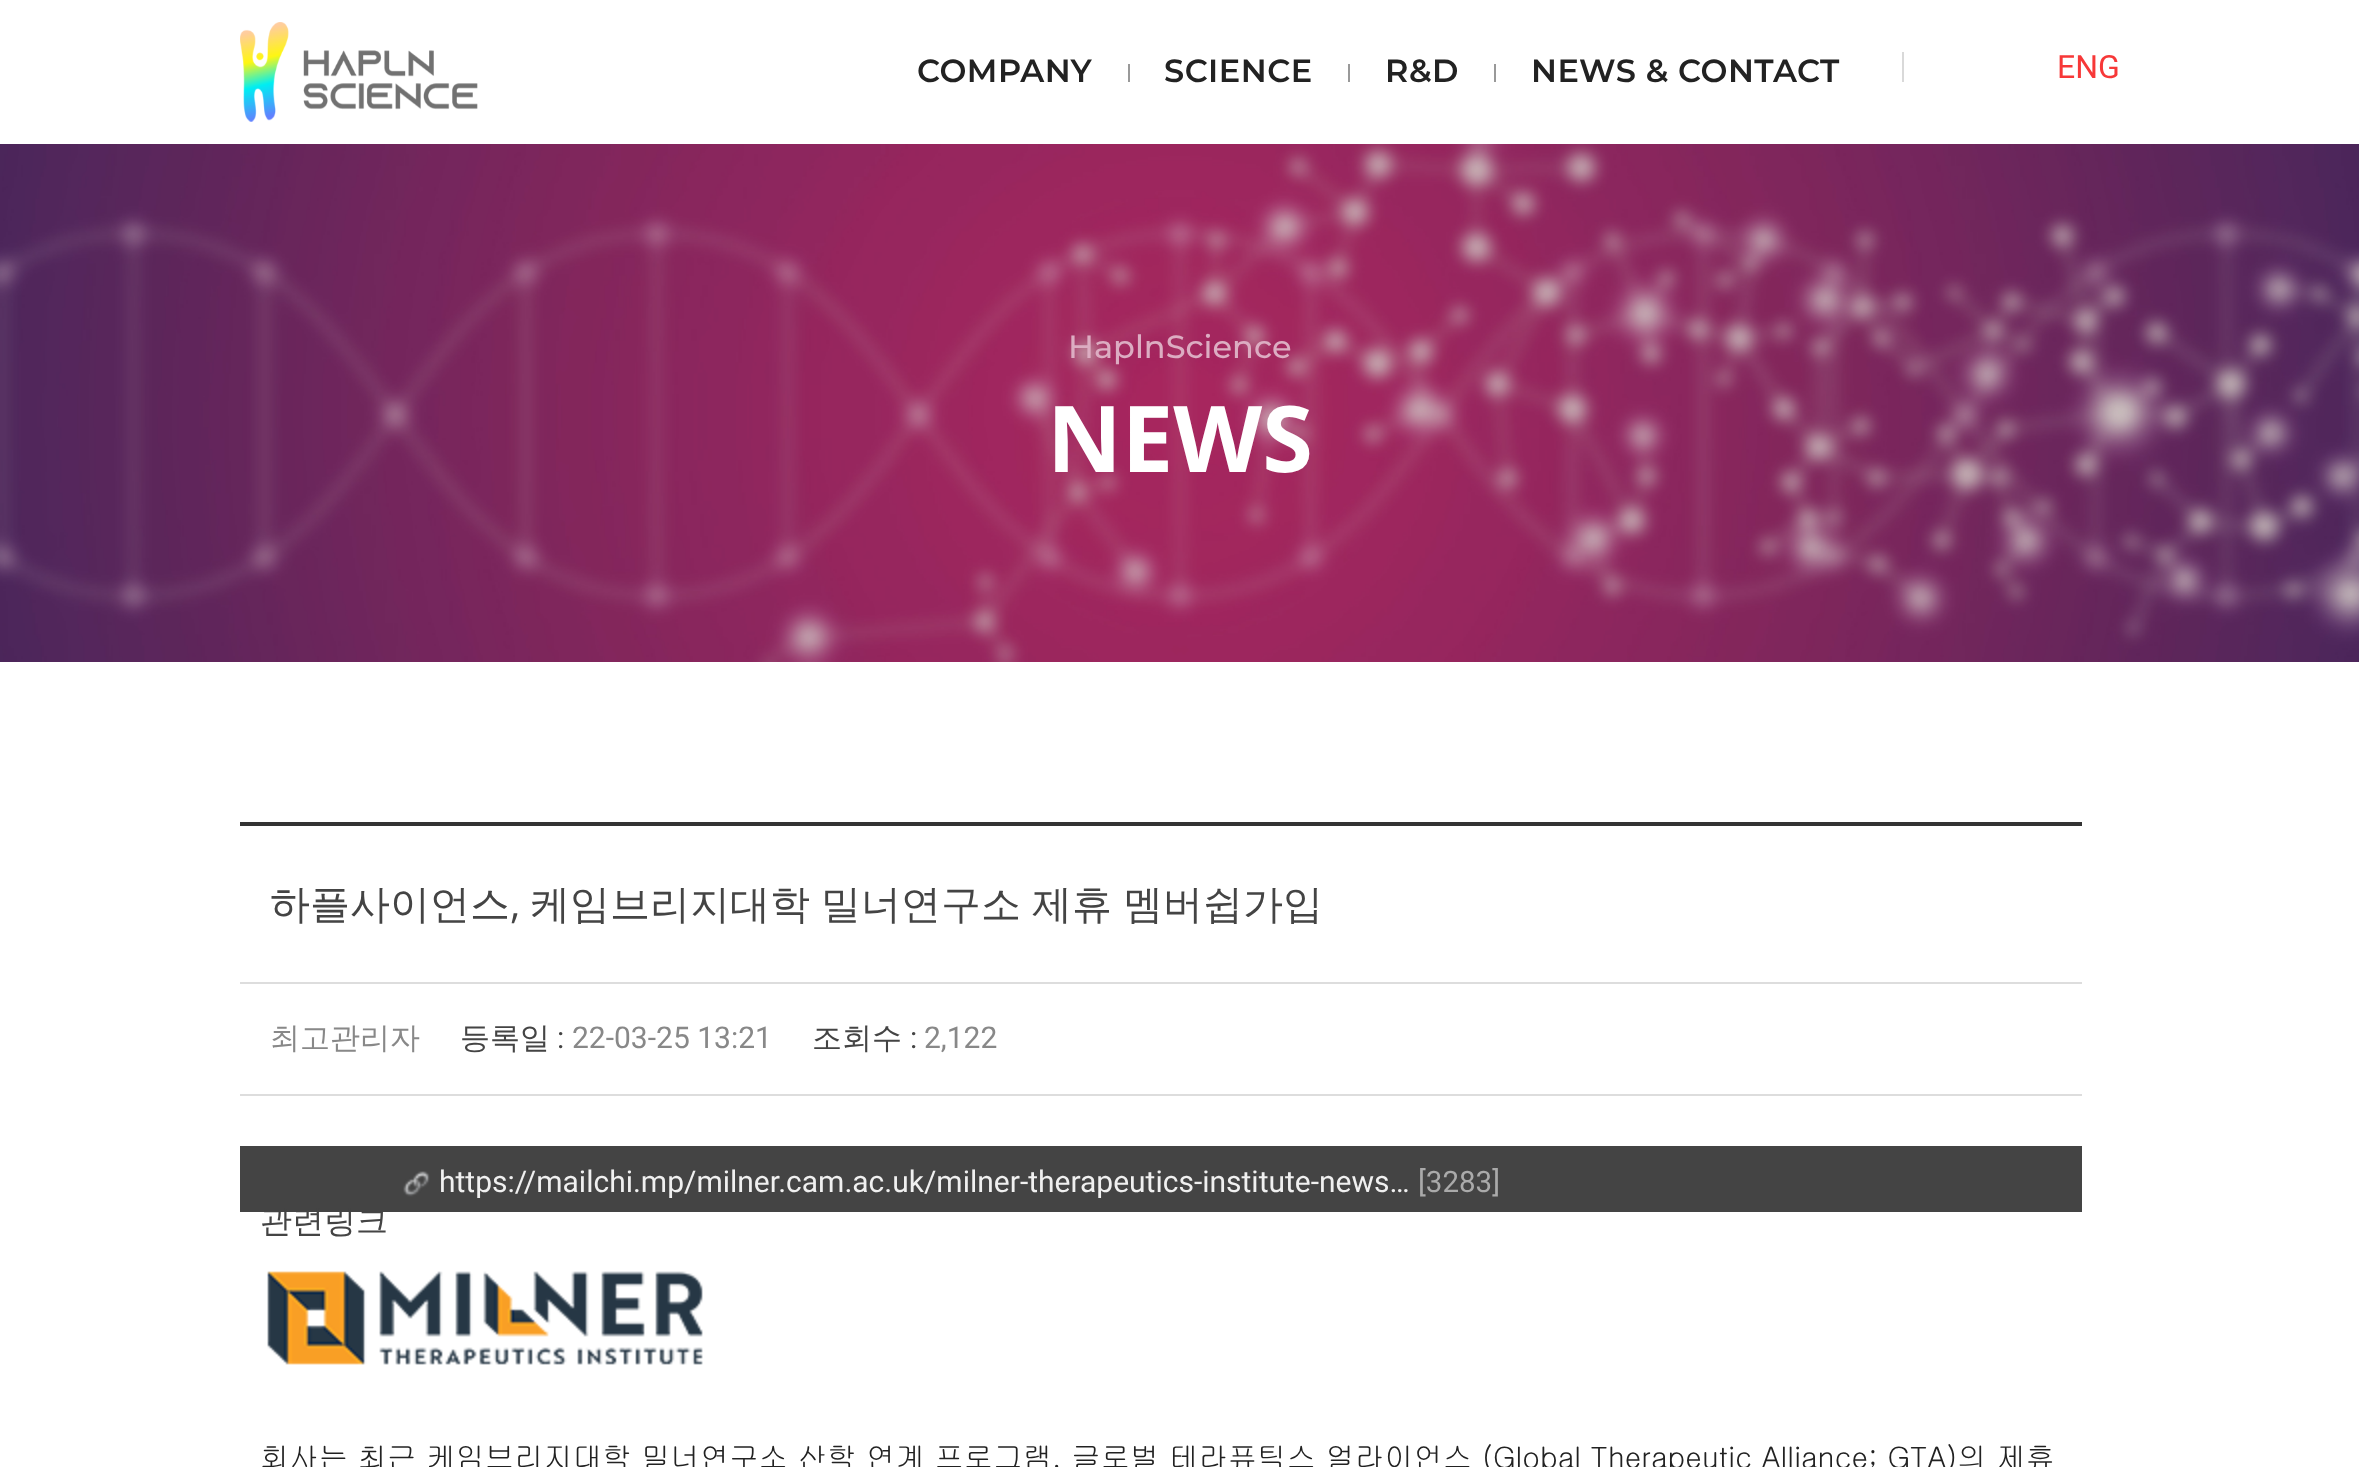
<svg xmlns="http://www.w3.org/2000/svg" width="2359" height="1467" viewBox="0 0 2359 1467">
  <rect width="100%" height="100%" fill="rgb(255,255,255)"/>
  <image x="240" y="22" width="238" height="100" href="pic1.png"/>
  <text x="917" y="82" font-family="Montserrat" font-size="32" font-weight="600" letter-spacing="0.5" fill="rgb(34,34,34)">COMPANY</text>
  <rect x="1128" y="64" width="2" height="18" fill="rgb(153,153,153)"/>
  <text x="1164" y="82" font-family="Montserrat" font-size="32" font-weight="600" letter-spacing="0.5" fill="rgb(34,34,34)">SCIENCE</text>
  <rect x="1348" y="64" width="2" height="18" fill="rgb(153,153,153)"/>
  <text x="1385" y="82" font-family="Montserrat" font-size="32" font-weight="600" letter-spacing="0.5" fill="rgb(34,34,34)">R&amp;D</text>
  <rect x="1494" y="64" width="2" height="18" fill="rgb(153,153,153)"/>
  <text x="1531" y="82" font-family="Montserrat" font-size="32" font-weight="600" letter-spacing="0.5" fill="rgb(34,34,34)">NEWS &amp; CONTACT</text>
  <rect x="1902" y="52" width="2" height="30" fill="rgb(217,217,217)"/>
  <text x="2057" y="78" font-family="Roboto" font-size="32" fill="rgb(247,56,56)">ENG</text>
  <image x="0" y="144" width="2359" height="518" href="pic2.png"/>
  <text x="1068" y="358" font-family="Montserrat" font-size="32" font-weight="500" fill="rgb(220,173,194)">HaplnScience</text>
  <text x="1047" y="472" font-family="Open Sans" font-size="92" font-weight="bold" fill="rgb(255,255,255)">NEWS</text>
  <rect x="240" y="822" width="1842" height="4" fill="rgb(51,51,51)"/>
  <rect x="240" y="982" width="1842" height="2" fill="rgb(221,221,221)"/>
  <text x="270" y="918" font-family="WenQuanYi Zen Hei" font-size="40" font-weight="500" fill="rgb(68,68,68)">하플사이언스</text>
  <text x="510" y="918" font-family="Open Sans" font-size="40" fill="rgb(68,68,68)">,</text>
  <text x="530" y="918" word-spacing="-1" font-family="WenQuanYi Zen Hei" font-size="40" font-weight="500" fill="rgb(68,68,68)">케임브리지대학 밀너연구소 제휴 멤버쉽가입</text>
  <rect x="240" y="1094" width="1842" height="2" fill="rgb(221,221,221)"/>
  <text x="270" y="1048" font-family="WenQuanYi Zen Hei" font-size="30" font-weight="500" fill="rgb(136,136,136)">최고관리자</text>
  <text x="460" y="1048" font-family="WenQuanYi Zen Hei" font-size="30" font-weight="500" fill="rgb(68,68,68)">등록일</text>
  <text x="557" y="1048" font-family="Roboto" font-size="30" fill="rgb(68,68,68)">:</text>
  <text x="572" y="1048" font-family="Roboto" font-size="30" fill="rgb(136,136,136)">22-03-25 13:21</text>
  <text x="812" y="1048" font-family="WenQuanYi Zen Hei" font-size="30" font-weight="500" fill="rgb(68,68,68)">조회수</text>
  <text x="910" y="1048" font-family="Roboto" font-size="30" fill="rgb(68,68,68)">:</text>
  <text x="924" y="1048" font-family="Roboto" font-size="30" fill="rgb(136,136,136)">2,122</text>
  <rect x="240" y="1146" width="1842" height="66" fill="rgb(68,68,68)"/>
  <image x="403" y="1171" width="27" height="26" href="pic3.png"/>
  <text x="439" y="1192" font-family="Roboto" font-size="30" fill="rgb(240,240,240)">https://mailchi.mp/milner.cam.ac.uk/milner-therapeutics-institute-news…</text>
  <text x="1418" y="1192" font-family="Roboto" font-size="29.5" fill="rgb(170,170,170)">[3283]</text>
  <text x="260" y="1232" font-family="WenQuanYi Zen Hei" font-size="32" font-weight="500" fill="rgb(68,68,68)">관련링크</text>
  <image x="267" y="1271" width="436" height="94" href="pic4.png"/>
  <text x="260" y="1468" font-family="Gulim" font-size="29.33" fill="rgb(34,34,34)">회사는 최근 케임브리지대학 밀너연구소 산학 연계 프로그램, 글로벌 테라퓨틱스 얼라이언스 (Global Therapeutic Alliance; GTA)의 제휴</text>
</svg>
